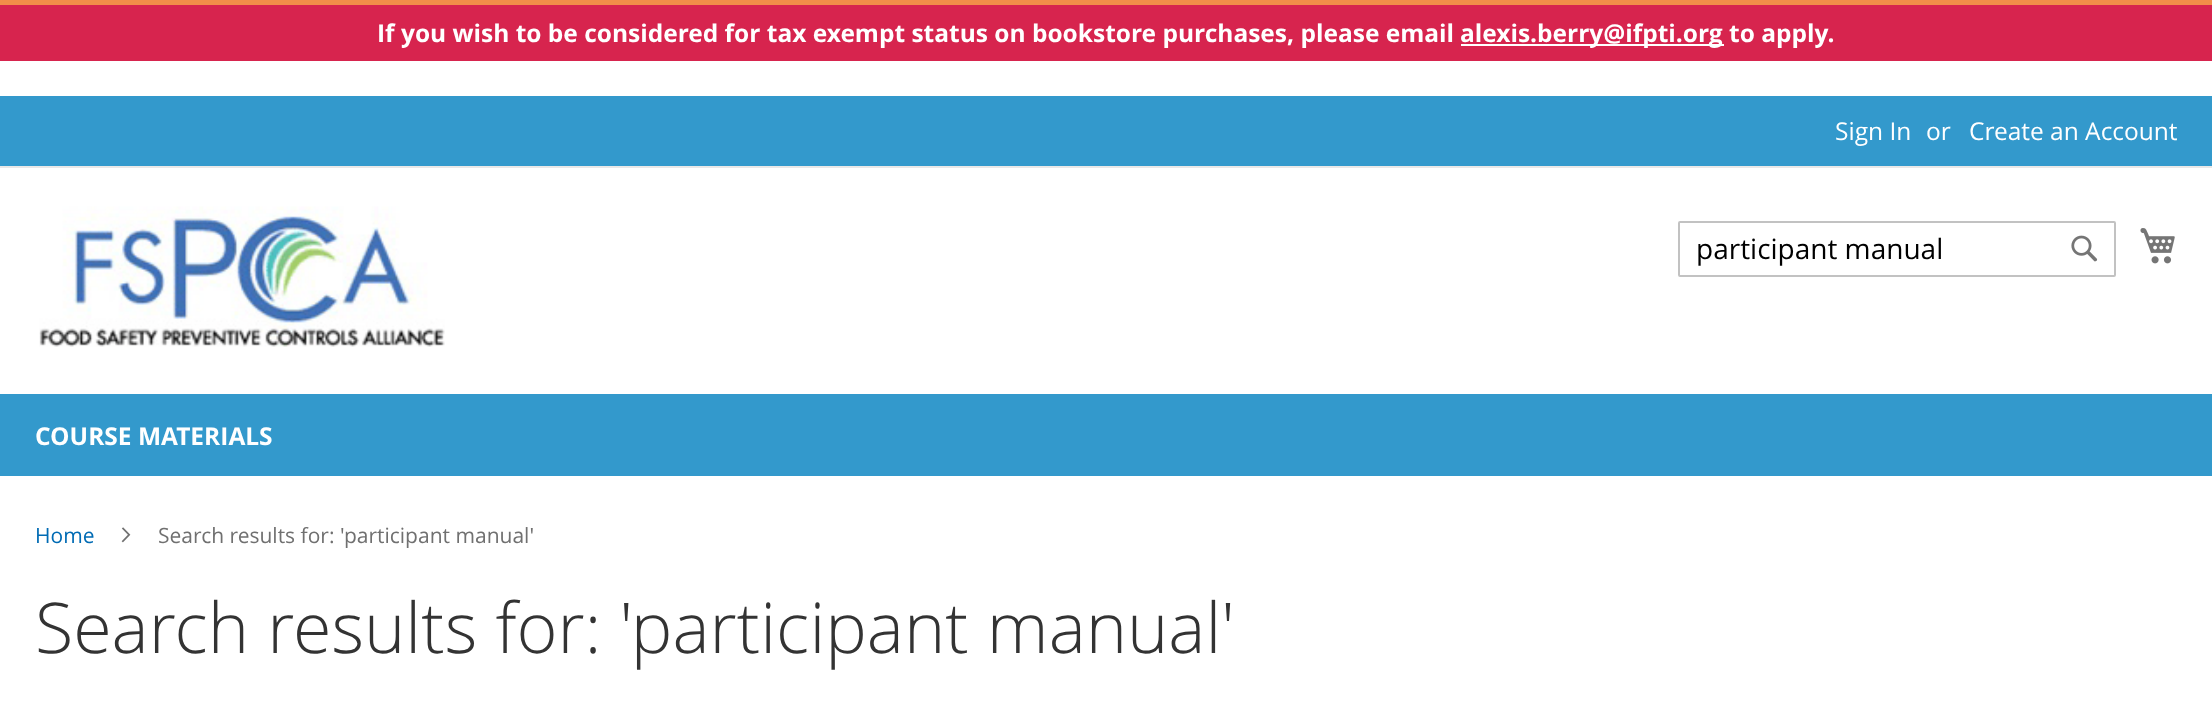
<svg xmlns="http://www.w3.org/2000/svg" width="2212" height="725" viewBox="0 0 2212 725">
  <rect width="100%" height="100%" fill="rgb(255,255,255)"/>
  <rect x="0" y="5" width="2212" height="56" fill="rgb(215,36,78)"/>
  <rect x="0" y="0" width="2212" height="5" fill="rgb(242,141,73)"/>
  <text x="377" y="42" font-family="Open Sans" font-size="24.5" font-weight="bold" fill="rgb(255,255,255)">If you wish to be considered for tax exempt status on bookstore purchases, please email</text>
  <rect x="1461" y="44" width="263" height="2" fill="rgb(255,255,255)"/>
  <text x="1460" y="42" font-family="Open Sans" font-size="24.5" font-weight="bold" fill="rgb(255,255,255)">alexis.berry@ifpti.org to apply.</text>
  <rect x="0" y="96" width="2212" height="70" fill="rgb(51,153,204)"/>
  <rect x="0" y="166" width="2212" height="2" fill="rgb(232,232,232)"/>
  <g font-family="Open Sans" font-size="24.5" fill="rgb(255,255,255)">
    <text x="1835" y="140">Sign In</text>
    <text x="1926" y="140">or</text>
    <text x="1969" y="140">Create an Account</text>
  </g>
  <image x="39" y="206" width="406" height="141" href="pic1.png"/>
  <rect x="1679" y="222" width="436" height="54" rx="1" fill="none" stroke="rgb(194,194,194)" stroke-width="2"/>
  <text x="1696" y="259" font-family="Open Sans" font-size="28" fill="rgb(0,0,0)">participant manual</text>
  <image x="2071" y="235" width="27" height="27" href="pic2.png"/>
  <image x="2140" y="228" width="35" height="36" href="pic3.png"/>
  <rect x="0" y="394" width="2212" height="82" fill="rgb(51,153,204)"/>
  <text x="35" y="445" font-family="Open Sans" font-size="24.5" font-weight="bold" fill="rgb(255,255,255)">COURSE MATERIALS</text>
  <text x="35" y="543" font-family="Open Sans" font-size="21" fill="rgb(0,107,180)">Home</text>
  <image x="121" y="527" width="10" height="16" href="pic4.png"/>
  <text x="158" y="543" font-family="Open Sans" font-size="21" fill="rgb(112,112,112)">Search results for: 'participant manual'</text>
  <text x="35" y="653" font-family="Open Sans" font-size="70" font-weight="300" fill="rgb(51,51,51)">Search results for: 'participant manual'</text>
</svg>
